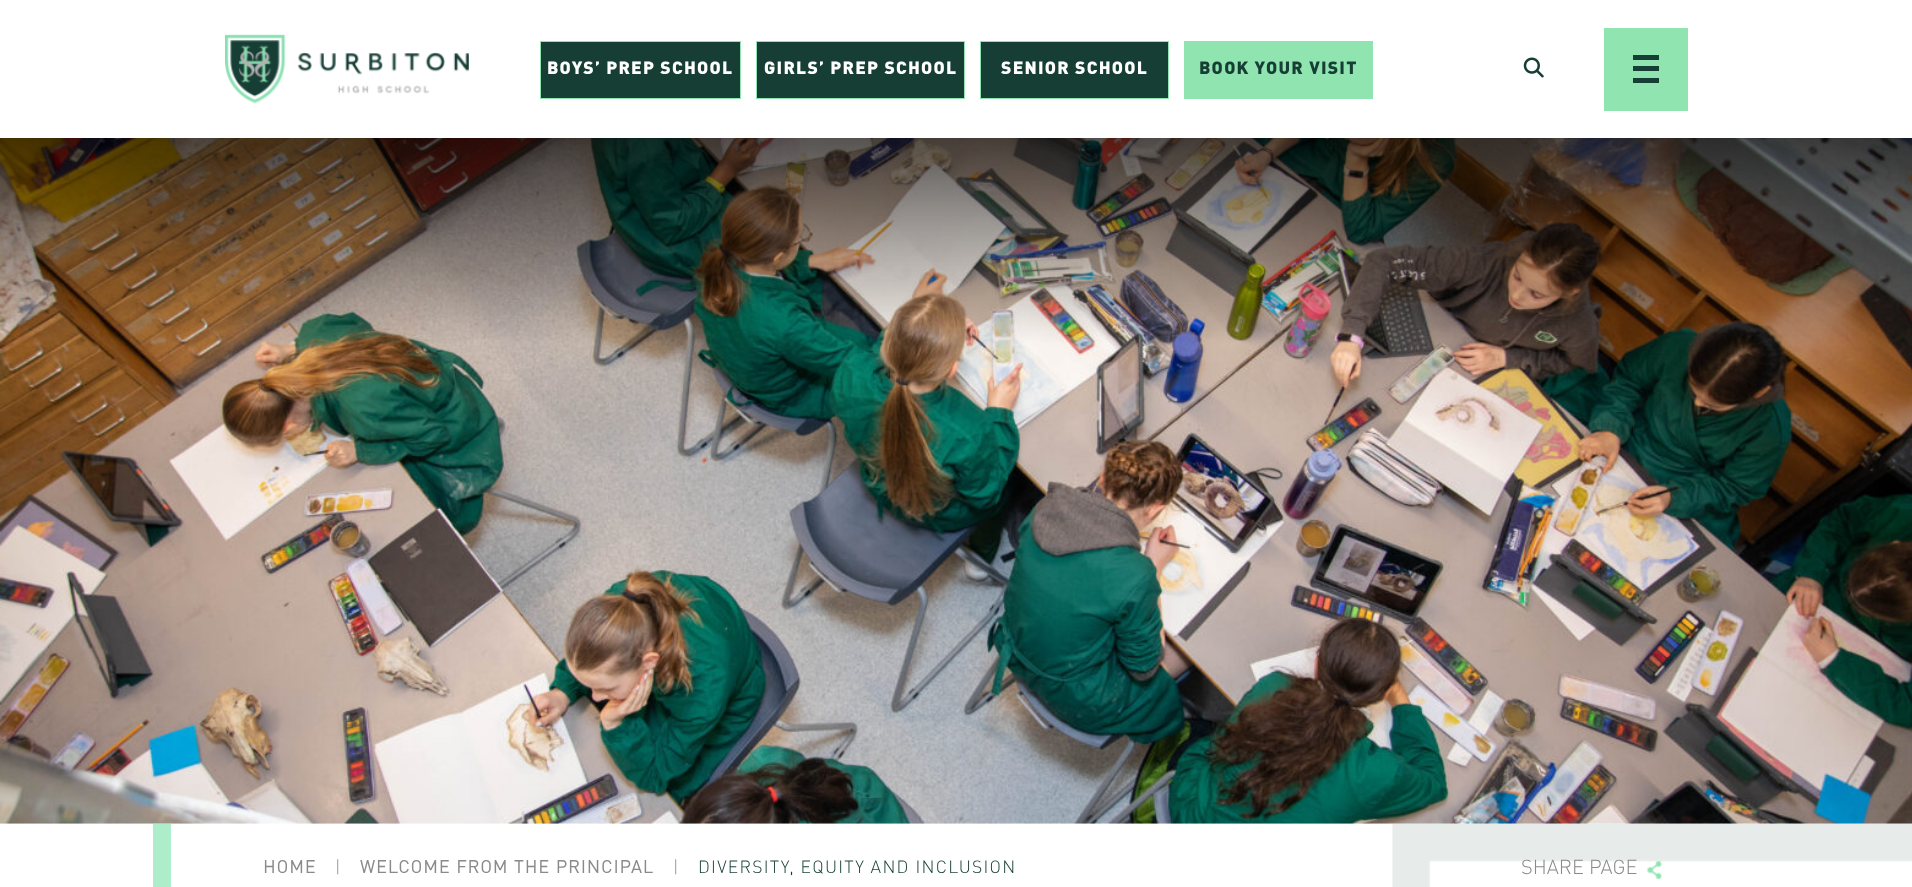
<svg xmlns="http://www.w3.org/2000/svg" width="1912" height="887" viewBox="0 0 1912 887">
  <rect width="100%" height="100%" fill="rgb(255,255,255)"/>
  <image x="225" y="34" width="244" height="70" href="pic1.png"/>
  <rect x="540.5" y="41.5" width="200" height="57" fill="rgb(22,62,52)" stroke="rgb(143,228,175)"/>
  <text x="547" y="74" font-family="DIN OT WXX" font-size="17.5" font-weight="900" letter-spacing="1.25" fill="rgb(255,255,255)">BOYS’ PREP SCHOOL</text>
  <rect x="756.5" y="41.5" width="208" height="57" fill="rgb(22,62,52)" stroke="rgb(143,228,175)"/>
  <text x="764" y="74" font-family="DIN OT WXX" font-size="17.5" font-weight="900" letter-spacing="1.25" fill="rgb(255,255,255)">GIRLS’ PREP SCHOOL</text>
  <rect x="980.5" y="41.5" width="188" height="57" fill="rgb(22,62,52)" stroke="rgb(143,228,175)"/>
  <text x="1001" y="74" font-family="DIN OT WXX" font-size="17.5" font-weight="900" letter-spacing="1.25" fill="rgb(255,255,255)">SENIOR SCHOOL</text>
  <rect x="1184" y="41" width="189" height="58" fill="rgb(143,228,175)"/>
  <text x="1199" y="74" font-family="DIN OT WXX" font-size="17.5" font-weight="900" letter-spacing="1.25" fill="rgb(22,62,52)">BOOK YOUR VISIT</text>
  <image x="1523" y="57" width="21" height="21" href="pic2.png"/>
  <rect x="1604" y="28" width="84" height="83" fill="rgb(143,228,175)"/>
  <rect x="1633" y="66" width="26" height="5" fill="rgb(22,62,52)"/>
  <rect x="1633" y="55" width="26" height="5" fill="rgb(22,62,52)"/>
  <rect x="1633" y="78" width="26" height="5" fill="rgb(22,62,52)"/>
  <image x="1392" y="823" width="520" height="64" href="pic5.png"/>
  <image x="0" y="138" width="1912" height="686" href="pic3.png"/>
  <rect x="153" y="824" width="18" height="63" fill="rgb(174,237,201)"/>
  <text x="263" y="873" font-family="DIN OT WXX" font-size="17.5" font-weight="bold" letter-spacing="1.25" fill="rgb(137,138,139)">HOME</text>
  <text x="335" y="873" font-family="DIN OT WXX" font-size="17.5" font-weight="300" letter-spacing="1.25" fill="rgb(137,138,139)">|</text>
  <text x="360" y="873" font-family="DIN OT WXX" font-size="17.5" font-weight="bold" letter-spacing="1.25" fill="rgb(137,138,139)">WELCOME FROM THE PRINCIPAL</text>
  <text x="673" y="873" font-family="DIN OT WXX" font-size="17.5" font-weight="300" letter-spacing="1.25" fill="rgb(137,138,139)">|</text>
  <text x="698" y="873" font-family="DIN OT WXX" font-size="17.5" font-weight="300" letter-spacing="1.25" fill="rgb(22,62,52)">DIVERSITY, EQUITY AND INCLUSION</text>
  <image x="1647" y="861" width="15" height="18" href="pic4.png"/>
  <text x="1521" y="874" font-family="DIN OT WXX" font-size="20" font-weight="300" fill="rgb(137,138,139)">SHARE PAGE</text>
</svg>
